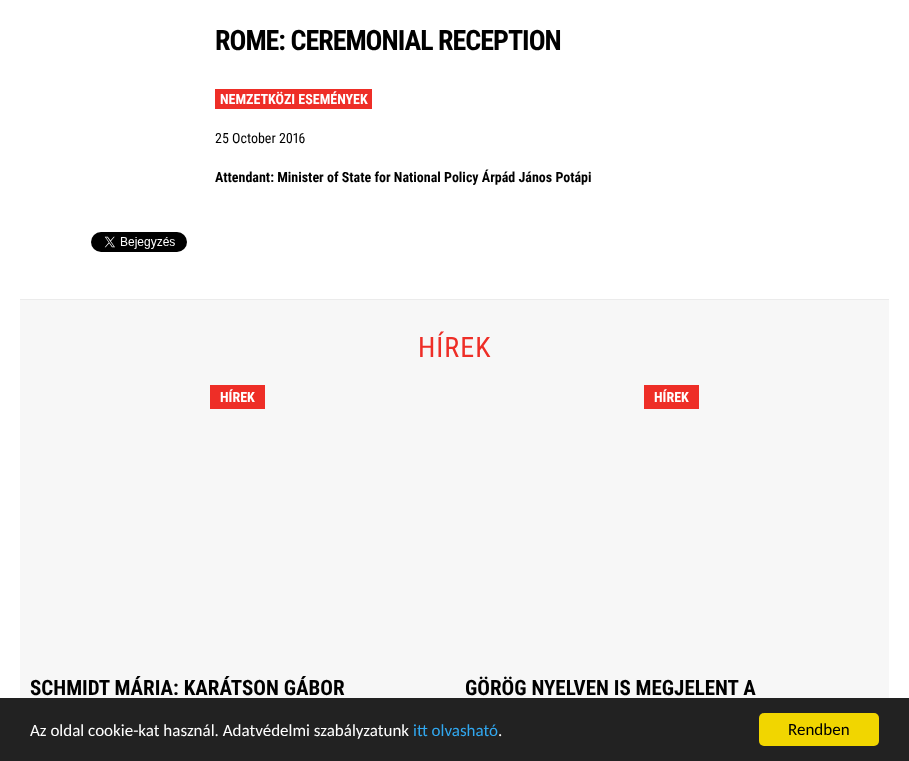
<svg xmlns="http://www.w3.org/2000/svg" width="909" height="761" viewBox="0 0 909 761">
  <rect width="100%" height="100%" fill="rgb(255,255,255)"/>
  <text x="215" y="50" font-family="Roboto Condensed" font-size="28" font-weight="bold" letter-spacing="-1" fill="rgb(0,0,0)">ROME: CEREMONIAL RECEPTION</text>
  <rect x="215" y="89" width="157" height="20" fill="rgb(238,46,39)"/>
  <text x="220" y="104" font-family="Roboto Condensed" font-size="14" font-weight="bold" fill="rgb(255,255,255)">NEMZETKÖZI ESEMÉNYEK</text>
  <text x="215" y="143" font-family="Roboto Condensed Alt" font-size="14" fill="rgb(0,0,0)">25 October 2016</text>
  <text x="215" y="182" font-family="Roboto Condensed" font-size="14" font-weight="bold" fill="rgb(0,0,0)">Attendant: Minister of State for National Policy Árpád János Potápi</text>
  <image x="91" y="232" width="96" height="20" href="pic1.png"/>
  <rect x="20" y="300" width="869" height="398" fill="rgb(247,247,247)"/>
  <rect x="20" y="299" width="869" height="1" fill="rgb(235,235,235)"/>
  <text x="418" y="357" font-family="Roboto Condensed" font-size="28" letter-spacing="1" fill="rgb(238,46,39)">HÍREK</text>
  <rect x="210" y="385" width="55" height="24" fill="rgb(238,46,39)"/>
  <text x="220" y="402" font-family="Roboto Condensed" font-size="14" font-weight="bold" fill="rgb(255,255,255)">HÍREK</text>
  <text x="30" y="695" font-family="Roboto Condensed" font-size="21" font-weight="bold" fill="rgb(0,0,0)">SCHMIDT MÁRIA: KARÁTSON GÁBOR</text>
  <rect x="644" y="385" width="55" height="24" fill="rgb(238,46,39)"/>
  <text x="654" y="402" font-family="Roboto Condensed" font-size="14" font-weight="bold" fill="rgb(255,255,255)">HÍREK</text>
  <text x="465" y="695" font-family="Roboto Condensed" font-size="21" font-weight="bold" fill="rgb(0,0,0)">GÖRÖG NYELVEN IS MEGJELENT A</text>
  <rect x="0" y="698" width="909" height="63" fill="rgb(34,34,34)"/>
  <text x="30" y="736" font-family="Carlito" font-size="17" fill="rgb(255,255,255)">Az oldal cookie-kat használ. Adatvédelmi szabályzatunk</text>
  <text x="413" y="736" font-family="Carlito" font-size="17" fill="rgb(49,168,240)">itt olvasható</text>
  <text x="498" y="736" font-family="Carlito" font-size="17" fill="rgb(255,255,255)">.</text>
  <rect x="759" y="713" width="120" height="33" rx="5" fill="rgb(241,214,0)"/>
  <text x="788" y="735" font-family="Carlito" font-size="17" fill="rgb(0,0,0)">Rendben</text>
</svg>
